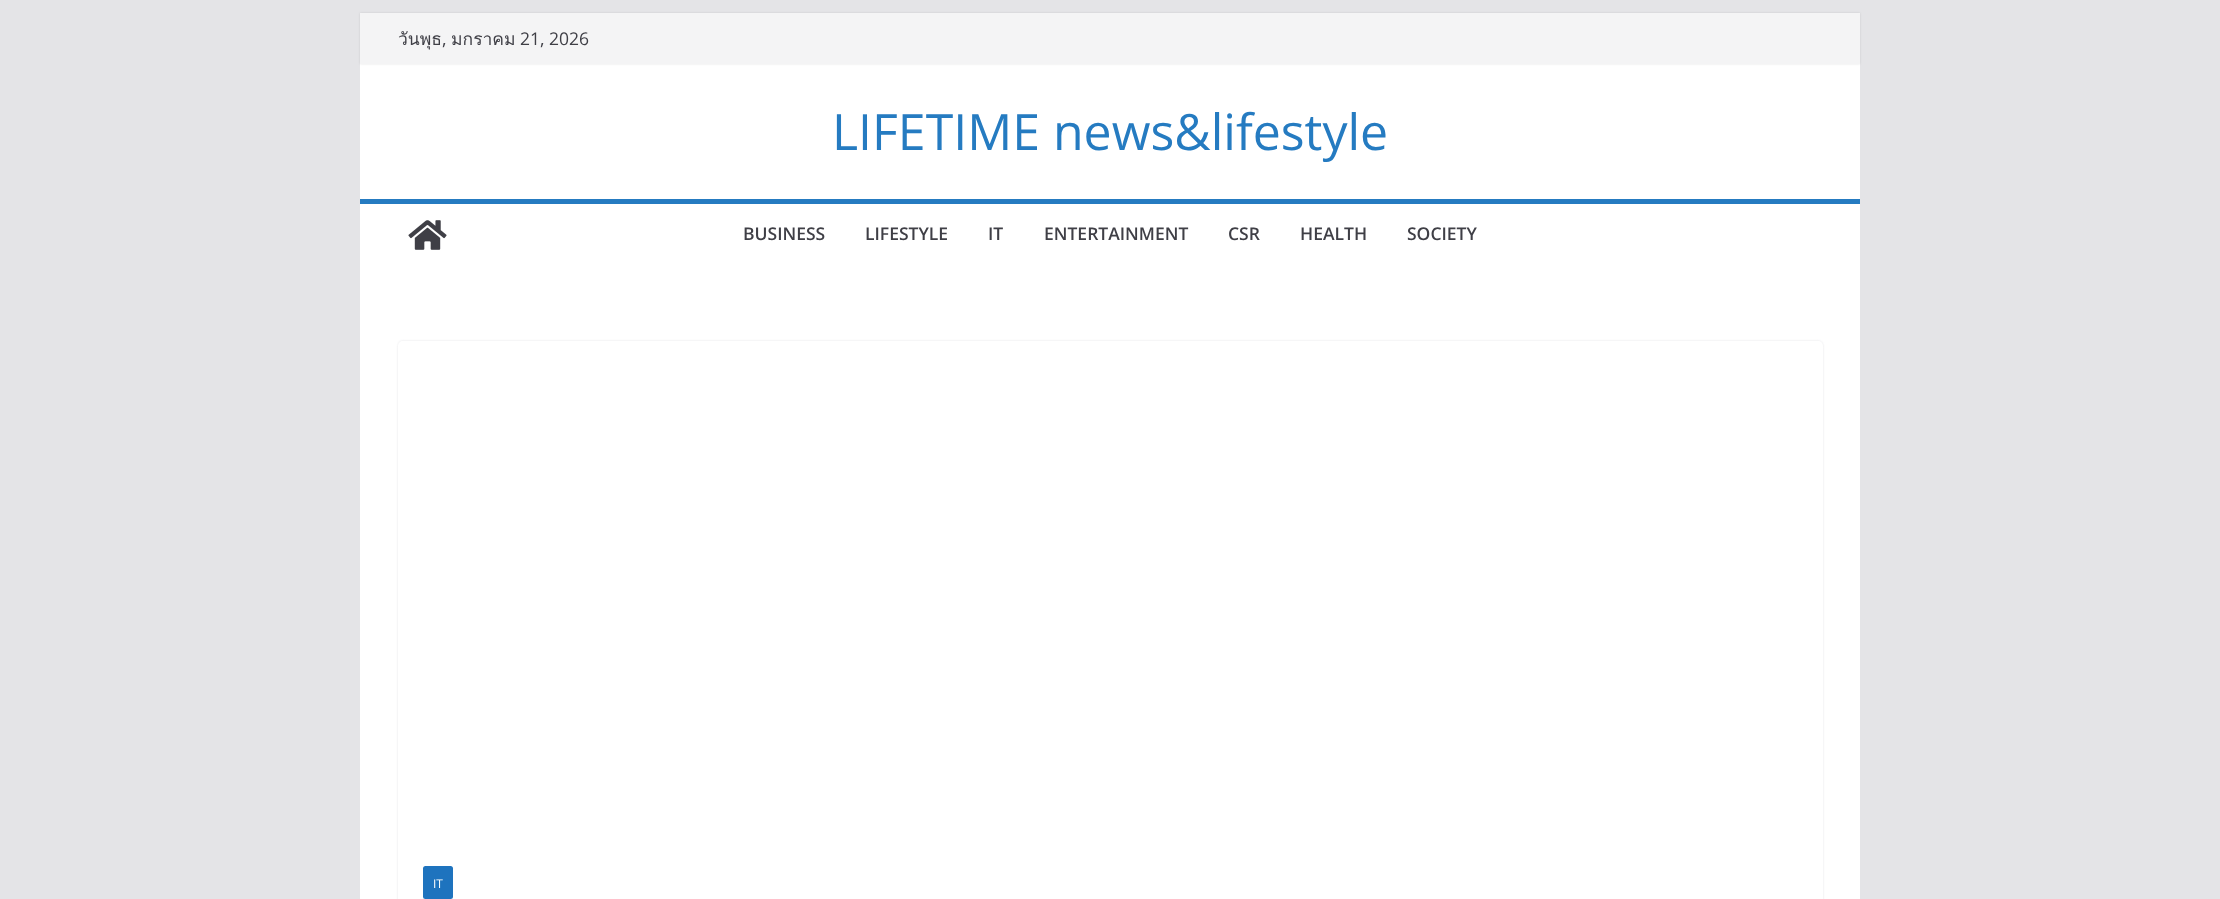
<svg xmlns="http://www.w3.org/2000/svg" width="2220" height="899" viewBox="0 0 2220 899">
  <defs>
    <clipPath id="clip1"><path d="M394 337H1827V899H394ZM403 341H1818C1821 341 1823 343 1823 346V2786C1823 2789 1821 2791 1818 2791H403C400 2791 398 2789 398 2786V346C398 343 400 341 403 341Z" clip-rule="evenodd"/></clipPath>
  </defs>
  <rect width="100%" height="100%" fill="rgb(228,228,231)"/>
  <rect x="360" y="64" width="1500" height="835" fill="rgb(255,255,255)"/>
  <rect x="360" y="13" width="1500" height="51" fill="rgba(0,0,0,0.1)" filter="blur(1px)"/>
  <rect x="360" y="13" width="1500" height="51" fill="rgb(244,244,245)"/>
  <text x="398" y="45" font-family="Loma" font-size="17.5" fill="rgb(63,63,70)">วันพุธ</text>
  <text x="442" y="45" font-family="Open Sans" font-size="17.5" fill="rgb(63,63,70)">,</text>
  <text x="451" y="45" font-family="Loma" font-size="17.5" fill="rgb(63,63,70)">มกราคม</text>
  <text x="520" y="45" font-family="Open Sans" font-size="17.5" fill="rgb(63,63,70)">21, 2026</text>
  <text x="832" y="150" font-family="Open Sans" font-size="50" fill="rgb(37,123,193)">LIFETIME news&amp;lifestyle</text>
  <rect x="360" y="199" width="1500" height="5" fill="rgb(37,123,193)"/>
  <image x="408" y="220" width="39" height="30" href="pic1.png"/>
  <g font-family="Open Sans" font-size="17.5" font-weight="600" fill="rgb(63,63,70)">
    <text x="743" y="240">BUSINESS</text>
    <text x="865" y="240">LIFESTYLE</text>
    <text x="988" y="240">IT</text>
    <text x="1044" y="240">ENTERTAINMENT</text>
    <text x="1228" y="240">CSR</text>
    <text x="1300" y="240">HEALTH</text>
    <text x="1407" y="240">SOCIETY</text>
  </g>
  <g clip-path="url(#clip1)">
    <rect x="398" y="341" width="1425" height="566" rx="5" fill="rgb(228,228,231)" filter="blur(1px)"/>
  </g>
  <rect x="423" y="866" width="30" height="33" rx="2.5" fill="rgb(30,115,190)"/>
  <text x="433" y="888" font-family="Open Sans" font-size="12" fill="rgb(255,255,255)">IT</text>
</svg>
